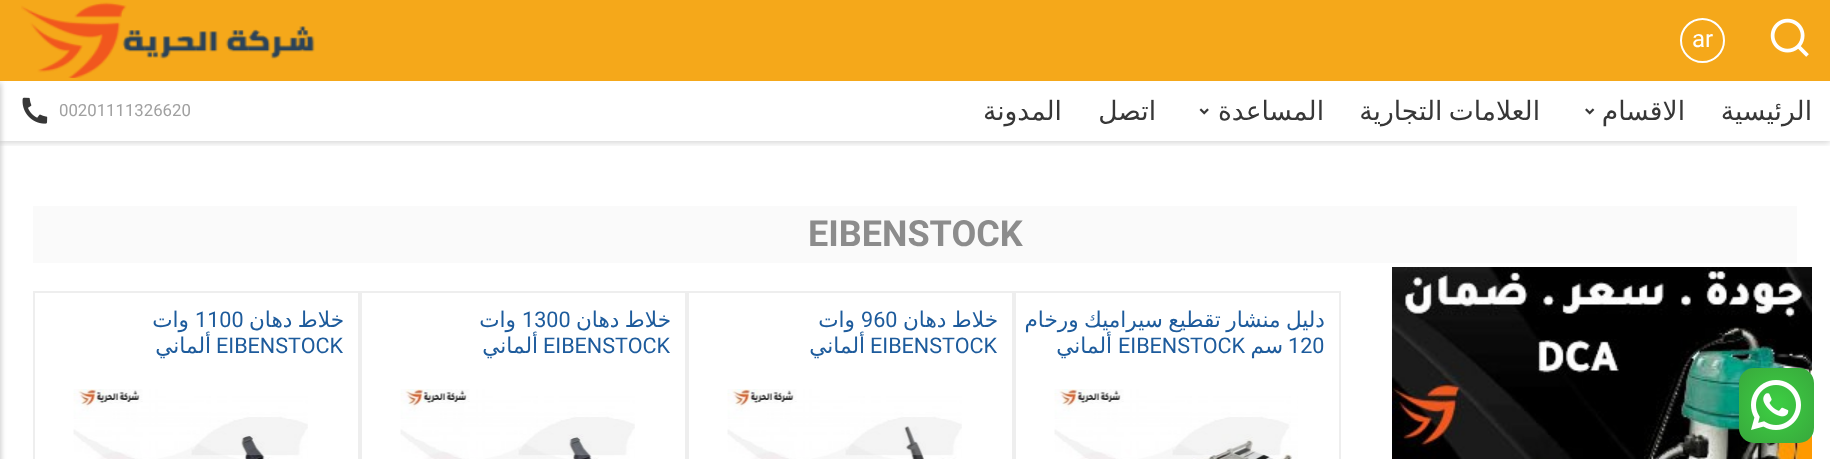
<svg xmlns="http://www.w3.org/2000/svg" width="1830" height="459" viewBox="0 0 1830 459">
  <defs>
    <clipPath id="clip1"><rect x="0" y="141" width="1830" height="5"/></clipPath>
    <radialGradient id="g1" gradientUnits="userSpaceOnUse" cx="1776" cy="405" r="53"><stop offset="0" stop-color="rgb(61,207,67)"/><stop offset="1" stop-color="rgb(56,168,60)"/></radialGradient>
  </defs>
  <rect width="100%" height="100%" fill="rgb(255,255,255)"/>
  <g clip-path="url(#clip1)">
    <rect x="0" y="83" width="1830" height="60" fill="rgba(0,0,0,0.16)" filter="blur(3px)"/>
  </g>
  <rect x="-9" y="83" width="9" height="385" fill="rgba(91,91,91,0.42)" filter="blur(3px)"/>
  <rect x="0" y="0" width="1830" height="81" fill="rgb(245,168,26)"/>
  <image x="1770" y="18" width="39" height="39" href="pic1.png"/>
  <circle cx="1702.5" cy="40.5" r="21.5" fill="none" stroke="rgb(255,255,255)" stroke-width="2"/>
  <text x="1692" y="47" font-family="Roboto" font-size="24" fill="rgb(255,255,255)">ar</text>
  <image x="21" y="2" width="294" height="76" href="pic2.png"/>
  <g font-family="DejaVu Sans" font-size="26.5" direction="rtl" fill="rgb(55,55,55)">
    <text x="1812" y="120">الرئيسية</text>
    <text x="1685" y="120">الاقسام</text>
  </g>
  <image x="1585" y="108" width="10" height="7" href="pic3.png"/>
  <g font-family="DejaVu Sans" font-size="26.5" direction="rtl" fill="rgb(55,55,55)">
    <text x="1540" y="120" word-spacing="-2">العلامات التجارية</text>
    <text x="1324" y="120">المساعدة</text>
  </g>
  <image x="1199" y="108" width="10" height="7" href="pic4.png"/>
  <g font-family="DejaVu Sans" font-size="26.5" direction="rtl" fill="rgb(55,55,55)">
    <text x="1156" y="120">اتصل</text>
    <text x="1062" y="120">المدونة</text>
  </g>
  <text x="59" y="116" font-family="Roboto" font-size="16.75" fill="rgb(160,160,160)">00201111326620</text>
  <image x="22" y="97" width="26" height="27" href="pic5.png"/>
  <rect x="33" y="206" width="1764" height="57" fill="rgb(250,250,250)"/>
  <text x="808" y="246" font-family="Roboto" font-size="36" font-weight="bold" fill="rgb(140,140,140)">EIBENSTOCK</text>
  <image x="1392" y="267" width="420" height="192" href="pic6.png"/>
  <rect x="1015" y="292" width="325" height="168" fill="none" stroke="rgb(238,238,238)" stroke-width="2"/>
  <text x="1325" y="327" word-spacing="-1.5" font-family="DejaVu Sans" font-size="21.6" direction="rtl" fill="rgb(29,91,156)">دليل منشار تقطيع سيراميك ورخام</text>
  <text x="1288" y="353" font-family="Roboto" font-size="21.6" fill="rgb(29,91,156)">120</text>
  <text x="1283" y="353" font-family="DejaVu Sans" font-size="21.6" direction="rtl" fill="rgb(29,91,156)">سم</text>
  <text x="1118" y="353" font-family="Roboto" font-size="21.6" fill="rgb(29,91,156)">EIBENSTOCK</text>
  <text x="1112" y="353" font-family="DejaVu Sans" font-size="21.6" direction="rtl" fill="rgb(29,91,156)">ألماني</text>
  <image x="1054" y="389" width="244" height="70" href="pic7.png"/>
  <rect x="688" y="292" width="325" height="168" fill="none" stroke="rgb(238,238,238)" stroke-width="2"/>
  <text x="998" y="327" word-spacing="-1.5" font-family="DejaVu Sans" font-size="21.6" direction="rtl" fill="rgb(29,91,156)">خلاط دهان</text>
  <text x="861" y="327" font-family="Roboto" font-size="21.6" fill="rgb(29,91,156)">960</text>
  <text x="855" y="327" font-family="DejaVu Sans" font-size="21.6" direction="rtl" fill="rgb(29,91,156)">وات</text>
  <text x="870" y="353" font-family="Roboto" font-size="21.6" fill="rgb(29,91,156)">EIBENSTOCK</text>
  <text x="865" y="353" font-family="DejaVu Sans" font-size="21.6" direction="rtl" fill="rgb(29,91,156)">ألماني</text>
  <image x="727" y="389" width="235" height="70" href="pic8.png"/>
  <rect x="361" y="292" width="325" height="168" fill="none" stroke="rgb(238,238,238)" stroke-width="2"/>
  <text x="671" y="327" word-spacing="-1.5" font-family="DejaVu Sans" font-size="21.6" direction="rtl" fill="rgb(29,91,156)">خلاط دهان</text>
  <text x="522" y="327" font-family="Roboto" font-size="21.6" fill="rgb(29,91,156)">1300</text>
  <text x="516" y="327" font-family="DejaVu Sans" font-size="21.6" direction="rtl" fill="rgb(29,91,156)">وات</text>
  <text x="543" y="353" font-family="Roboto" font-size="21.6" fill="rgb(29,91,156)">EIBENSTOCK</text>
  <text x="538" y="353" font-family="DejaVu Sans" font-size="21.6" direction="rtl" fill="rgb(29,91,156)">ألماني</text>
  <image x="400" y="389" width="235" height="70" href="pic9.png"/>
  <rect x="34" y="292" width="325" height="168" fill="none" stroke="rgb(238,238,238)" stroke-width="2"/>
  <text x="344" y="327" word-spacing="-1.5" font-family="DejaVu Sans" font-size="21.6" direction="rtl" fill="rgb(29,91,156)">خلاط دهان</text>
  <text x="195" y="327" font-family="Roboto" font-size="21.6" fill="rgb(29,91,156)">1100</text>
  <text x="189" y="327" font-family="DejaVu Sans" font-size="21.6" direction="rtl" fill="rgb(29,91,156)">وات</text>
  <text x="216" y="353" font-family="Roboto" font-size="21.6" fill="rgb(29,91,156)">EIBENSTOCK</text>
  <text x="211" y="353" font-family="DejaVu Sans" font-size="21.6" direction="rtl" fill="rgb(29,91,156)">ألماني</text>
  <image x="73" y="389" width="235" height="70" href="pic10.png"/>
  <rect x="1739" y="368" width="75" height="75" rx="15" fill="url(#g1)"/>
  <image x="1751" y="380" width="50" height="50" href="pic11.png"/>
</svg>
